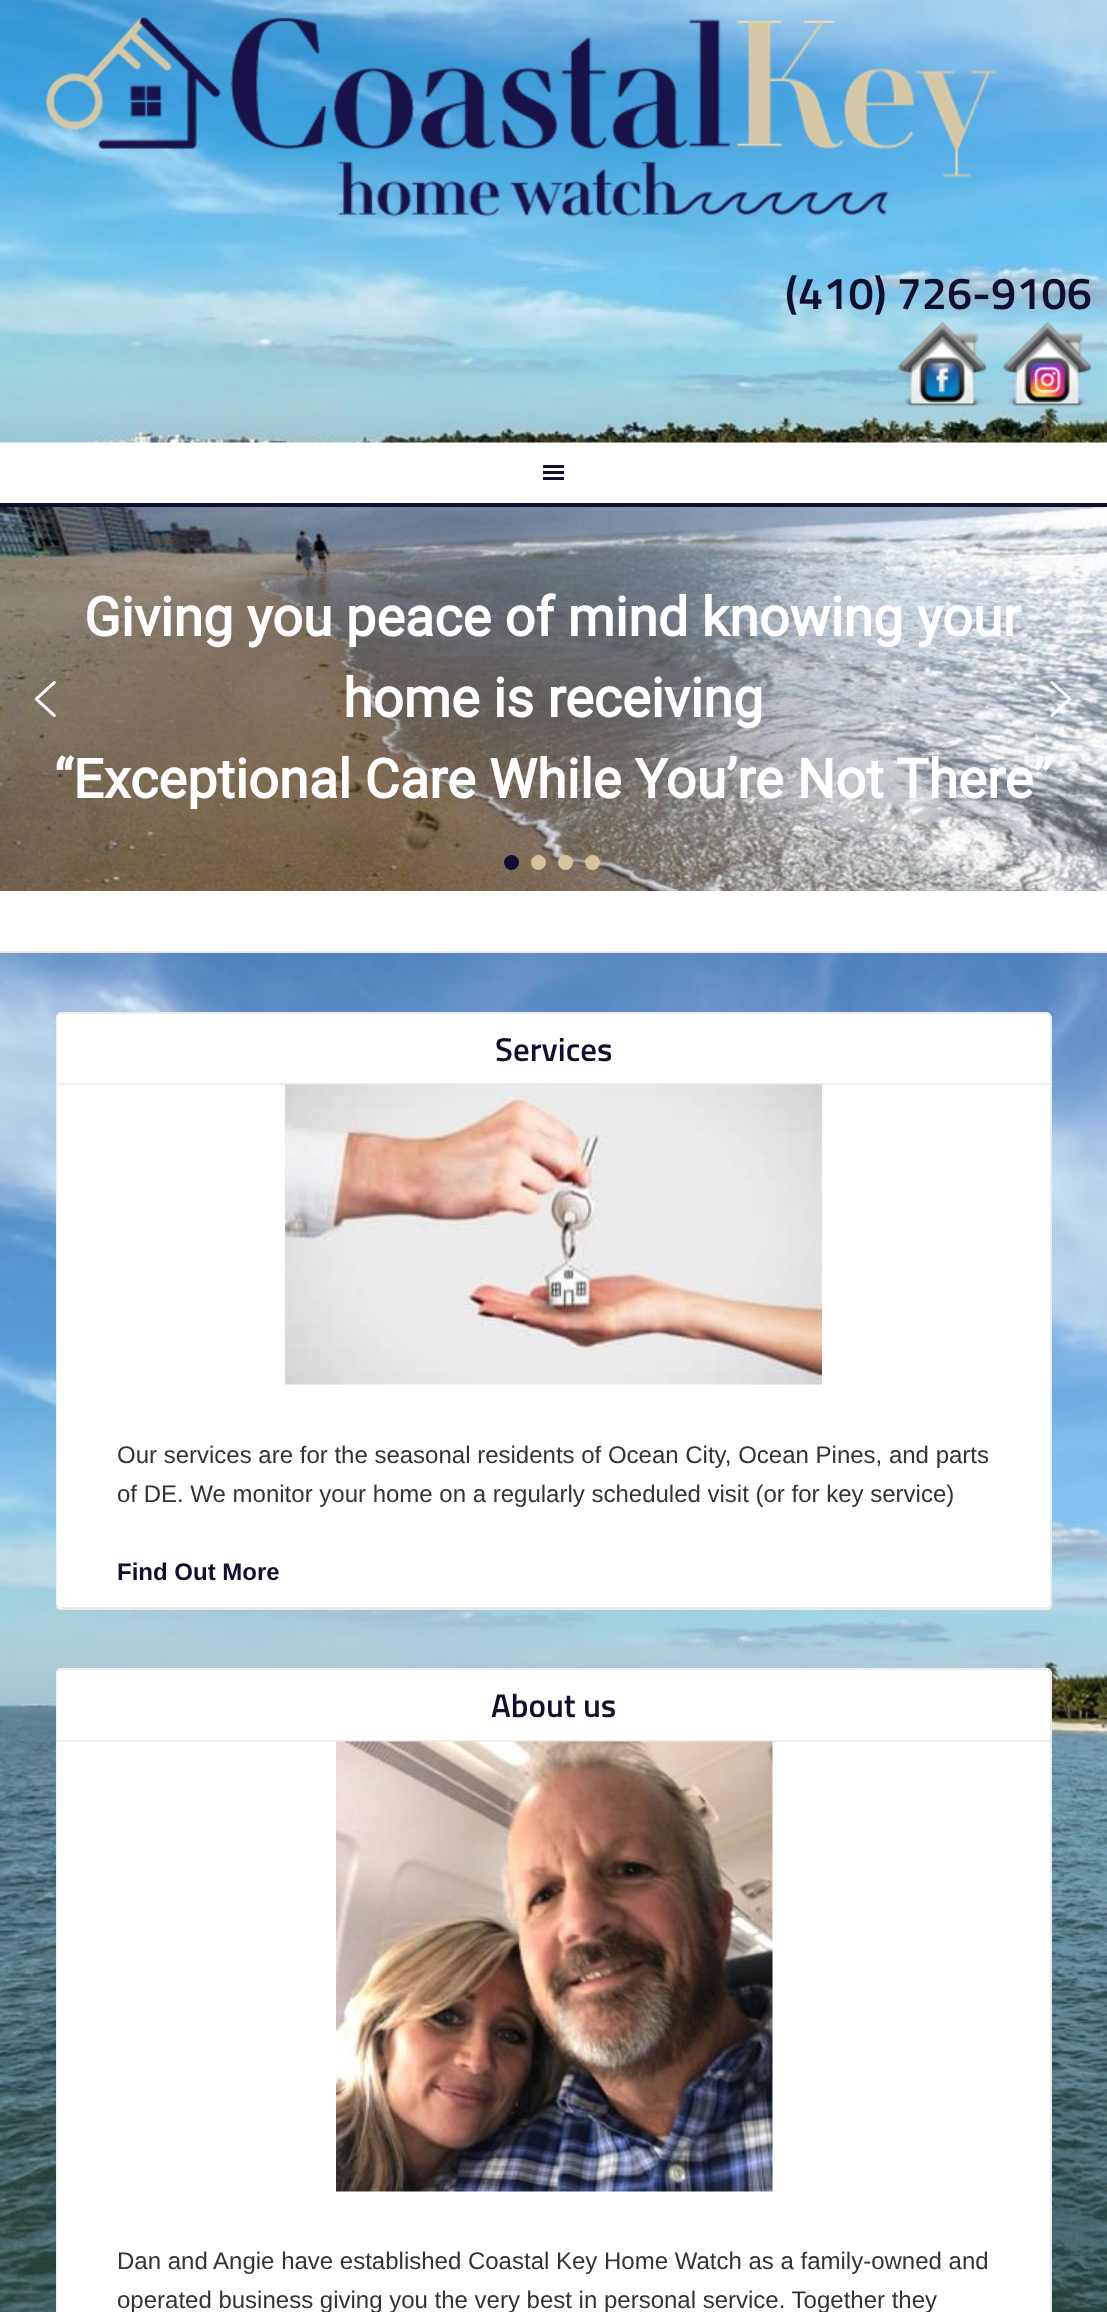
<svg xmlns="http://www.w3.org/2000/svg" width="1107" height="2312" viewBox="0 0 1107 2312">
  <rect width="100%" height="100%" fill="rgb(255,255,255)"/>
  <image x="0" y="0" width="1107" height="443" href="pic1.png"/>
  <image x="46" y="17" width="951" height="200" href="pic2.png"/>
  <text x="785" y="309" font-family="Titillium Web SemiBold" font-size="45" font-weight="600" fill="rgb(17,15,47)">(410) 726-9106</text>
  <image x="898" y="322" width="89" height="85" href="pic3.png"/>
  <image x="1003" y="322" width="89" height="85" href="pic4.png"/>
  <image x="543" y="465" width="21" height="15" href="pic5.png"/>
  <rect x="0" y="503" width="1107" height="4" fill="rgb(17,15,47)"/>
  <image x="0" y="507" width="1107" height="384" href="pic7.png"/>
  <image x="34" y="681" width="22" height="36" href="pic6.png"/>
  <g font-family="Roboto" font-size="54" font-weight="bold" fill="rgb(255,255,255)">
    <text x="84" y="636">Giving you peace of mind knowing your</text>
    <text x="343" y="717">home is receiving</text>
    <text x="54" y="798">“Exceptional Care While You’re Not There”</text>
  </g>
  <image x="1050" y="681" width="22" height="36" href="pic8.png"/>
  <circle cx="511.5" cy="862.5" r="7.5" fill="rgb(17,15,47)"/>
  <circle cx="538.5" cy="862.5" r="7.5" fill="rgb(214,194,157)"/>
  <circle cx="565.5" cy="862.5" r="7.5" fill="rgb(214,194,157)"/>
  <circle cx="592.5" cy="862.5" r="7.5" fill="rgb(214,194,157)"/>
  <image x="0" y="953" width="1107" height="1359" href="pic9.png"/>
  <rect x="0" y="951" width="1107" height="2" fill="rgb(236,236,236)"/>
  <path d="M56 1606C56 1608 58 1610 61 1610H1047C1050 1610 1052 1608 1052 1605V1019L1051 1017L1052 1604C1052 1606 1049 1608 1047 1608H60C58 1608 57 1607 56 1606Z" fill="rgb(236,236,236)"/>
  <path d="M60 1014H1047C1049 1014 1050 1015 1050 1017V1604C1050 1606 1049 1608 1047 1608H60C58 1608 57 1606 57 1604V1017C57 1015 58 1014 60 1014Z" fill="rgb(255,255,255)"/>
  <path d="M60 1012H1047C1049 1012 1052 1015 1052 1017V1604C1052 1606 1049 1608 1047 1608H60C58 1608 56 1606 56 1604V1017C56 1015 58 1012 60 1012ZM60 1014H1047C1049 1014 1050 1015 1050 1017V1604C1050 1606 1049 1608 1047 1608H60C58 1608 57 1606 57 1604V1017C57 1015 58 1014 60 1014Z" fill="rgb(236,236,236)" fill-rule="evenodd"/>
  <rect x="57" y="1083" width="993" height="2" fill="rgb(236,236,236)"/>
  <text x="495" y="1061" font-family="Titillium Web SemiBold" font-size="33" font-weight="600" fill="rgb(17,15,47)">Services</text>
  <rect x="57" y="1607" width="993" height="2" fill="rgb(236,236,236)"/>
  <image x="285" y="1084" width="537" height="301" href="pic10.png"/>
  <g font-family="Liberation Sans" font-size="24" fill="rgb(51,51,51)">
    <text>
      <tspan x="117" y="1463">Our services are for the seasonal residents of Ocean City, Ocean Pines, and parts</tspan>
      <tspan x="117" y="1502">of DE. We monitor your home on a regularly scheduled visit (or for key service)</tspan>
    </text>
  </g>
  <text x="117" y="1580" font-family="Liberation Sans" font-size="24" font-weight="bold" fill="rgb(17,15,47)">Find Out More</text>
  <path d="M60 1670H1047C1049 1670 1050 1671 1050 1672V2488C1050 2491 1049 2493 1047 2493H60C58 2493 57 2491 57 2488V1672C57 1671 58 1670 60 1670Z" fill="rgb(255,255,255)"/>
  <path d="M60 1668H1047C1049 1668 1052 1670 1052 1672V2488C1052 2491 1049 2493 1047 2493H60C58 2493 56 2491 56 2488V1672C56 1670 58 1668 60 1668ZM60 1670H1047C1049 1670 1050 1671 1050 1672V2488C1050 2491 1049 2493 1047 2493H60C58 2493 57 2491 57 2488V1672C57 1671 58 1670 60 1670Z" fill="rgb(236,236,236)" fill-rule="evenodd"/>
  <rect x="57" y="1740" width="993" height="2" fill="rgb(236,236,236)"/>
  <text x="491" y="1717" font-family="Titillium Web SemiBold" font-size="33" font-weight="600" fill="rgb(17,15,47)">About us</text>
  <image x="336" y="1741" width="437" height="451" href="pic11.png"/>
  <g font-family="Liberation Sans" font-size="24" fill="rgb(51,51,51)">
    <text>
      <tspan x="117" y="2269">Dan and Angie have established Coastal Key Home Watch as a family-owned and</tspan>
      <tspan x="117" y="2308">operated business giving you the very best in personal service. Together they</tspan>
    </text>
  </g>
</svg>
